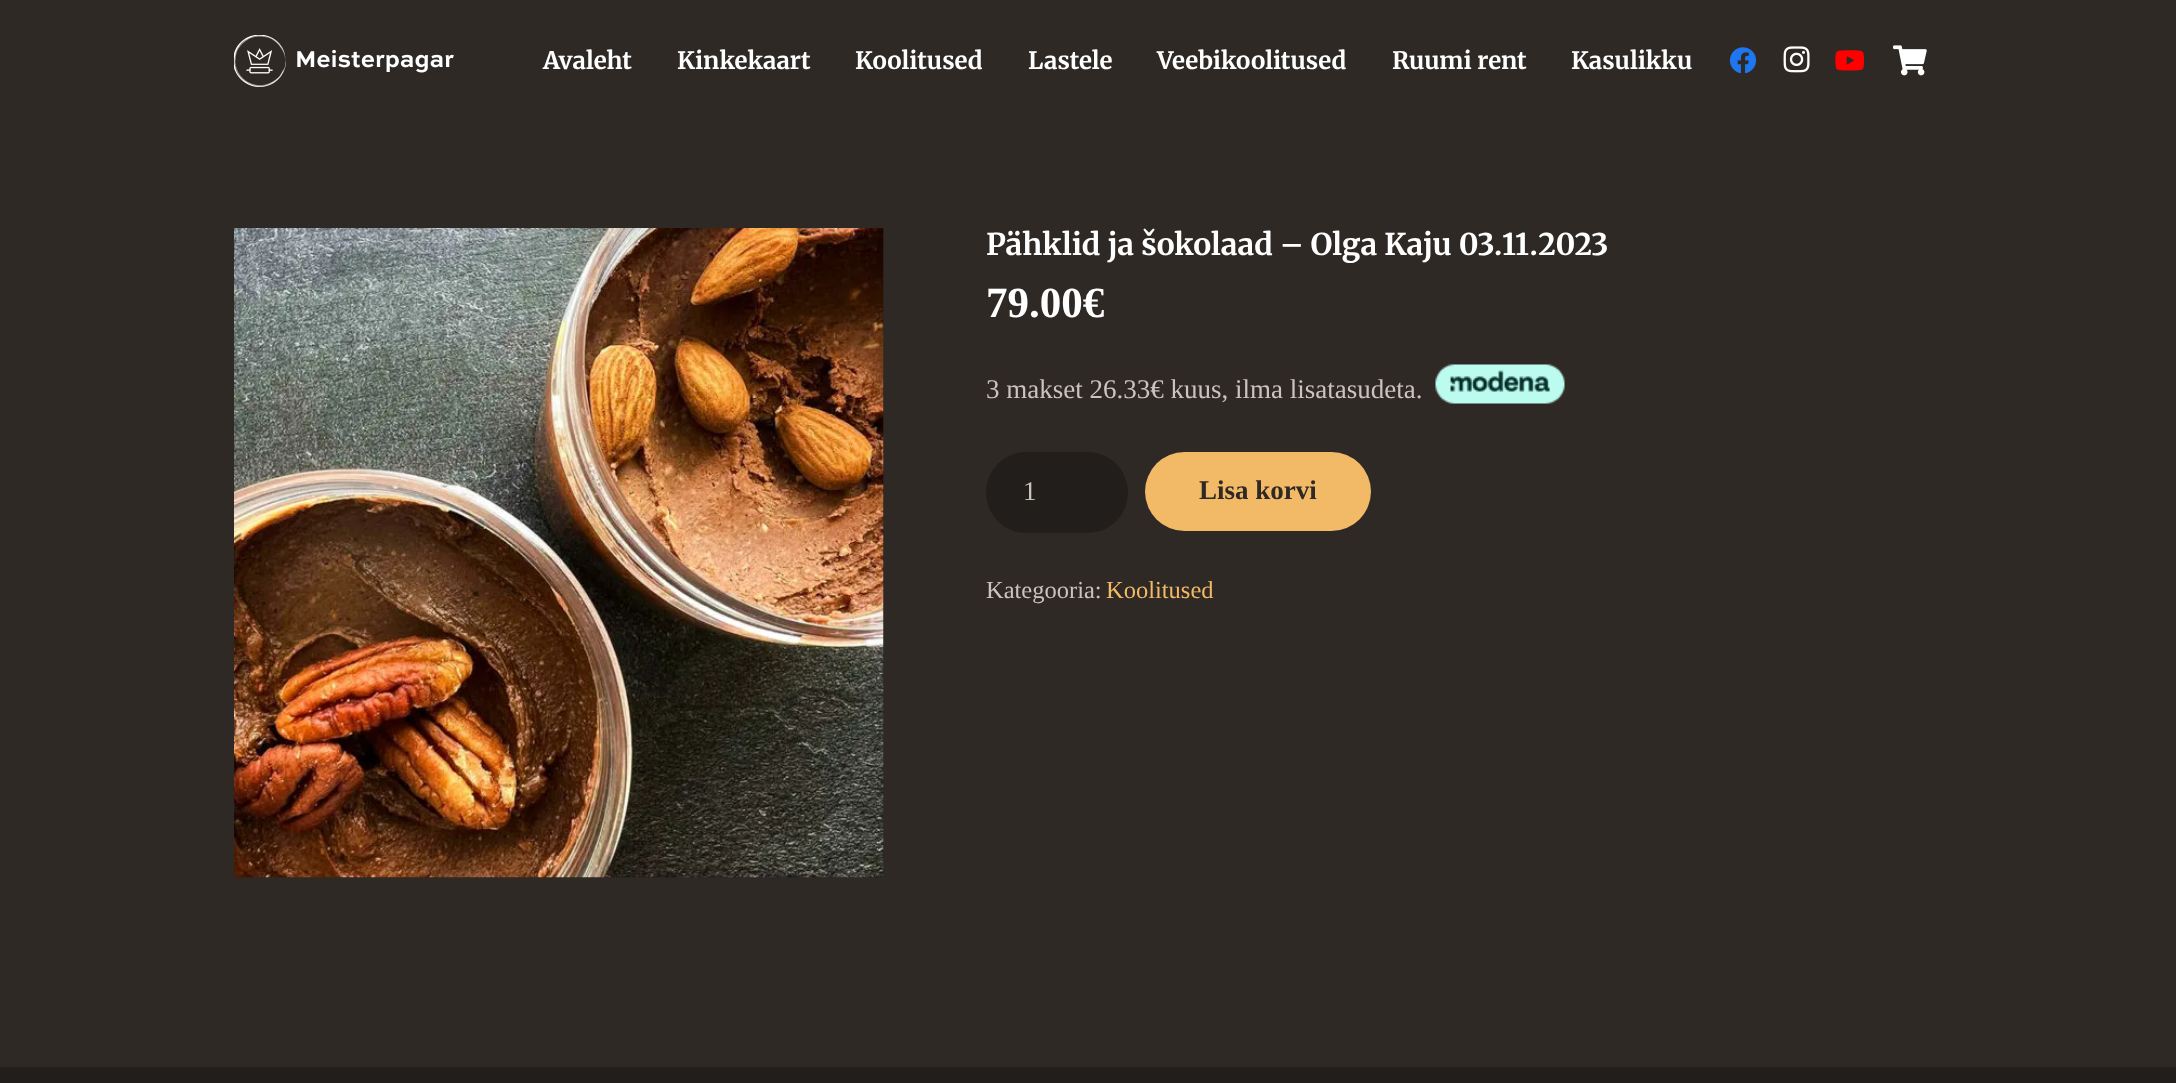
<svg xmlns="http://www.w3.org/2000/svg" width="2176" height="1083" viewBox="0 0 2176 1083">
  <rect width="100%" height="100%" fill="rgb(33,30,27)"/>
  <rect x="0" y="0" width="2176" height="1067" fill="rgb(46,41,37)"/>
  <image x="234" y="35" width="220" height="52" href="pic1.png"/>
  <g font-family="Merriweather" font-size="24" font-weight="bold" fill="rgb(255,255,255)">
    <text x="543" y="69">Avaleht</text>
    <text x="677" y="69">Kinkekaart</text>
    <text x="855" y="69">Koolitused</text>
    <text x="1028" y="69">Lastele</text>
    <text x="1157" y="69">Veebikoolitused</text>
    <text x="1392" y="69">Ruumi rent</text>
    <text x="1571" y="69">Kasulikku</text>
  </g>
  <image x="1729" y="47" width="28" height="27" href="pic2.png"/>
  <image x="1783" y="46" width="27" height="27" href="pic3.png"/>
  <image x="1835" y="50" width="30" height="21" href="pic4.png"/>
  <image x="1893" y="45" width="34" height="31" href="pic5.png"/>
  <image x="234" y="228" width="650" height="650" href="pic6.png"/>
  <text x="986" y="255" font-family="Merriweather" font-size="30" font-weight="bold" fill="rgb(255,255,255)">Pähklid ja šokolaad – Olga Kaju 03.11.2023</text>
  <text x="986" y="317" font-family="Liberation Serif" font-size="43" font-weight="bold" fill="rgb(255,255,255)">79.00€</text>
  <text x="986" y="398" font-family="Liberation Serif" font-size="27" fill="rgb(204,196,188)">3 makset 26.33€ kuus, ilma lisatasudeta.</text>
  <image x="1435" y="364" width="130" height="40" href="pic7.png"/>
  <rect x="986" y="452" width="142" height="81" rx="40.5" fill="rgb(33,30,27)"/>
  <text x="1023" y="500" font-family="Liberation Serif" font-size="27" fill="rgb(204,196,188)">1</text>
  <rect x="1145" y="452" width="226" height="79" rx="39.5" fill="rgb(242,186,102)"/>
  <text x="1199" y="499" font-family="Liberation Serif" font-size="27" font-weight="bold" fill="rgb(46,41,37)">Lisa korvi</text>
  <text x="986" y="598" font-family="Liberation Serif" font-size="24.5" fill="rgb(204,196,188)">Kategooria:</text>
  <text x="1106" y="598" font-family="Liberation Serif" font-size="24.5" fill="rgb(242,186,102)">Koolitused</text>
</svg>
